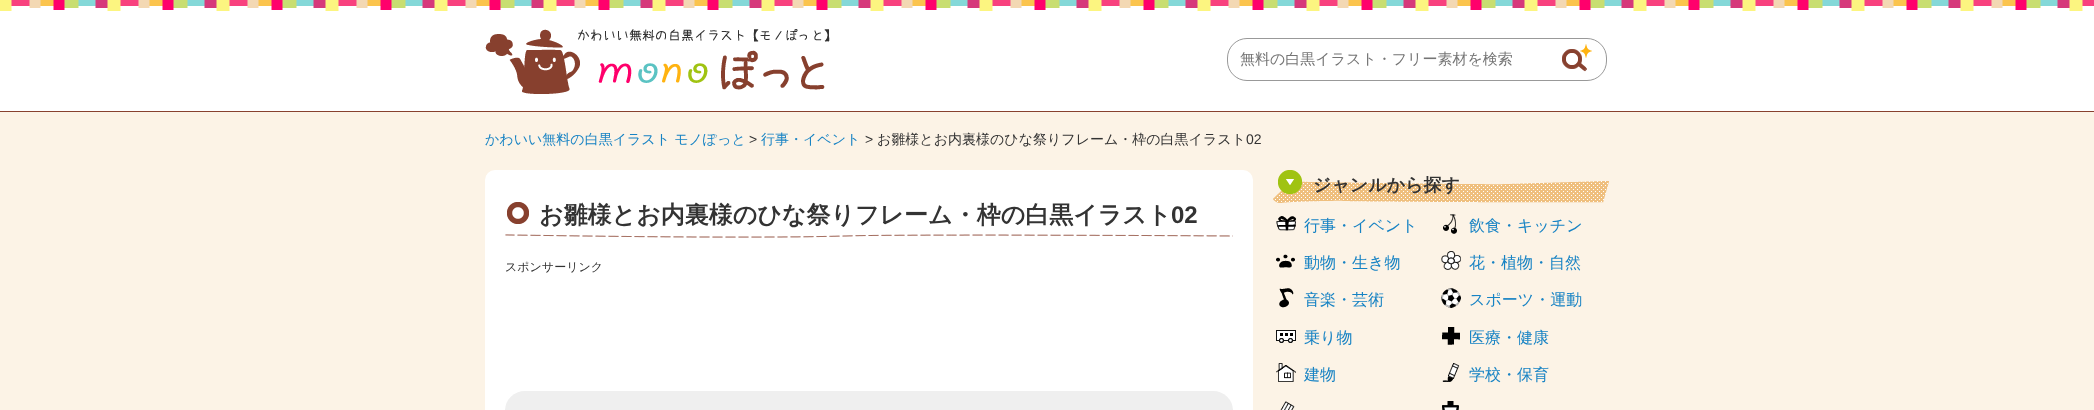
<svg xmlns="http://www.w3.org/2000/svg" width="2094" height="410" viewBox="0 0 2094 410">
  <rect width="100%" height="100%" fill="rgb(252,243,230)"/>
  <rect x="0" y="11" width="2094" height="100" fill="rgb(255,255,255)"/>
  <image x="0" y="0" width="2094" height="11" href="pic1.png"/>
  <rect x="0" y="111" width="2094" height="1" fill="rgb(136,65,47)"/>
  <image x="485" y="29" width="345" height="65" href="pic2.png"/>
  <rect x="1227.5" y="38.5" width="379" height="42" rx="19.5" fill="none" stroke="rgb(153,153,153)"/>
  <text x="1240" y="64" font-family="WenQuanYi Zen Hei" font-size="15" font-weight="500" fill="rgb(117,117,117)">無料の白黒イラスト・フリー素材を検索</text>
  <image x="1562" y="44" width="30" height="28" href="pic3.png"/>
  <text x="485" y="144" font-family="WenQuanYi Zen Hei" font-size="14" font-weight="500" fill="rgb(23,131,196)">かわいい無料の白黒イラスト モノぽっと</text>
  <text x="749" y="144" font-family="Liberation Sans" font-size="14" fill="rgb(51,51,51)">&gt;</text>
  <text x="761" y="144" font-family="WenQuanYi Zen Hei" font-size="14" font-weight="500" fill="rgb(23,131,196)">行事・イベント</text>
  <text x="865" y="144" font-family="Liberation Sans" font-size="14" fill="rgb(51,51,51)">&gt;</text>
  <text x="877" y="144" font-family="WenQuanYi Zen Hei" font-size="14" font-weight="500" fill="rgb(51,51,51)">お雛様とお内裏様のひな祭りフレーム・枠の白黒イラスト</text>
  <text x="1246" y="144" font-family="Liberation Sans" font-size="14" fill="rgb(51,51,51)">02</text>
  <rect x="485" y="170" width="768" height="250" rx="10" fill="rgb(255,255,255)"/>
  <image x="505" y="202" width="728" height="36" href="pic4.png"/>
  <text x="539" y="223" font-family="WenQuanYi Zen Hei" font-size="24" font-weight="bold" fill="rgb(51,51,51)">お雛様とお内裏様のひな祭りフレーム・枠の白黒イラスト</text>
  <text x="1171" y="223" font-family="Liberation Sans" font-size="24" font-weight="bold" fill="rgb(51,51,51)">02</text>
  <text x="505" y="271" font-family="WenQuanYi Zen Hei" font-size="12" font-weight="500" fill="rgb(51,51,51)">スポンサーリンク</text>
  <rect x="505" y="391" width="728" height="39" rx="20" fill="rgb(239,239,239)"/>
  <image x="1273" y="170" width="336" height="33" href="pic5.png"/>
  <text x="1313" y="191" font-family="WenQuanYi Zen Hei" font-size="18" font-weight="bold" fill="rgb(51,51,51)">ジャンルから探す</text>
  <image x="1276" y="216" width="20" height="15" href="pic6.png"/>
  <text x="1304" y="231" font-family="WenQuanYi Zen Hei" font-size="16" font-weight="500" fill="rgb(23,131,196)">行事・イベント</text>
  <image x="1443" y="214" width="14" height="20" href="pic7.png"/>
  <text x="1469" y="231" font-family="WenQuanYi Zen Hei" font-size="16" font-weight="500" fill="rgb(23,131,196)">飲食・キッチン</text>
  <image x="1276" y="254" width="19" height="14" href="pic8.png"/>
  <text x="1304" y="268" font-family="WenQuanYi Zen Hei" font-size="16" font-weight="500" fill="rgb(23,131,196)">動物・生き物</text>
  <image x="1441" y="251" width="20" height="19" href="pic9.png"/>
  <text x="1469" y="268" font-family="WenQuanYi Zen Hei" font-size="16" font-weight="500" fill="rgb(23,131,196)">花・植物・自然</text>
  <image x="1279" y="288" width="15" height="20" href="pic10.png"/>
  <text x="1304" y="305" font-family="WenQuanYi Zen Hei" font-size="16" font-weight="500" fill="rgb(23,131,196)">音楽・芸術</text>
  <image x="1441" y="288" width="20" height="20" href="pic11.png"/>
  <text x="1469" y="305" font-family="WenQuanYi Zen Hei" font-size="16" font-weight="500" fill="rgb(23,131,196)">スポーツ・運動</text>
  <image x="1276" y="330" width="20" height="13" href="pic12.png"/>
  <text x="1304" y="343" font-family="WenQuanYi Zen Hei" font-size="16" font-weight="500" fill="rgb(23,131,196)">乗り物</text>
  <image x="1442" y="327" width="18" height="18" href="pic13.png"/>
  <text x="1469" y="343" font-family="WenQuanYi Zen Hei" font-size="16" font-weight="500" fill="rgb(23,131,196)">医療・健康</text>
  <image x="1276" y="363" width="20" height="19" href="pic14.png"/>
  <text x="1304" y="380" font-family="WenQuanYi Zen Hei" font-size="16" font-weight="500" fill="rgb(23,131,196)">建物</text>
  <image x="1442" y="363" width="18" height="19" href="pic15.png"/>
  <text x="1469" y="380" font-family="WenQuanYi Zen Hei" font-size="16" font-weight="500" fill="rgb(23,131,196)">学校・保育</text>
  <image x="1280" y="401" width="15" height="9" href="pic16.png"/>
  <image x="1442" y="401" width="17" height="9" href="pic17.png"/>
</svg>
